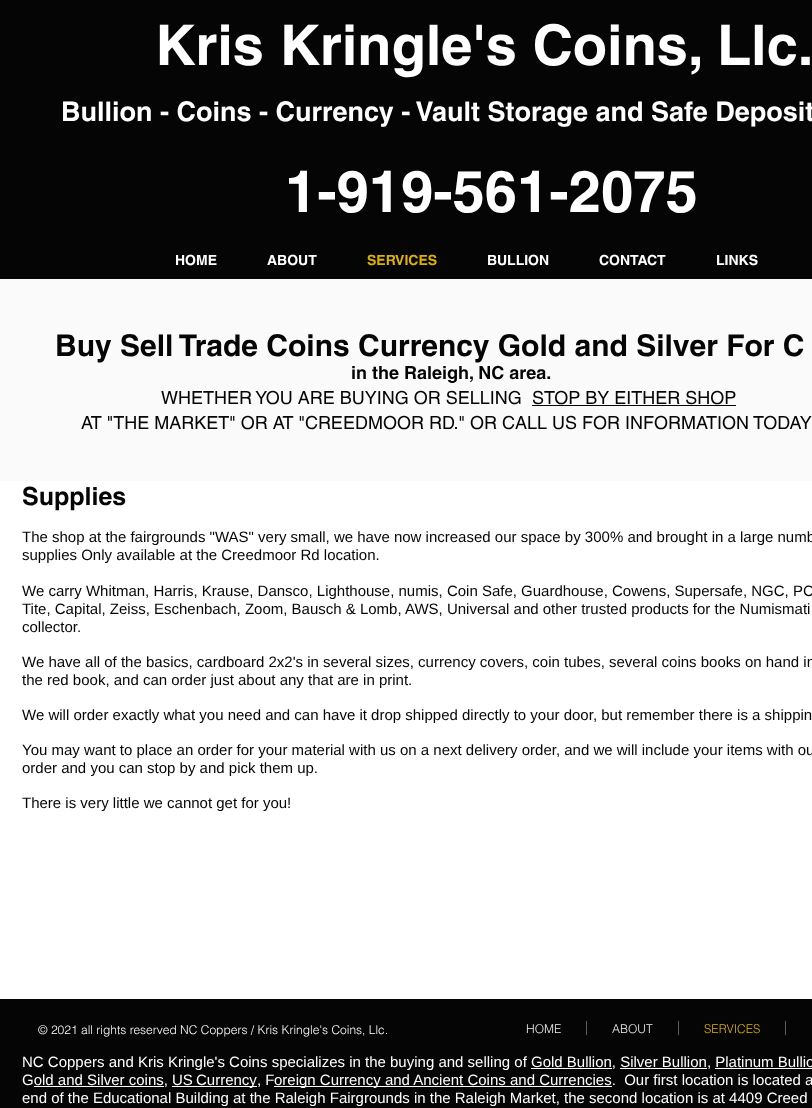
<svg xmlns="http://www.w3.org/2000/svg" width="812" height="1108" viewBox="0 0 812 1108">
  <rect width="100%" height="100%" fill="rgb(255,255,255)"/>
  <rect x="0" y="0" width="812" height="279" fill="rgb(5,5,5)"/>
  <text x="155" y="65" font-family="helvetica" font-size="56" font-weight="bold" fill="rgb(255,255,255)">Kris Kringle's Coins, Llc.</text>
  <text x="61" y="121" font-family="helvetica" font-size="27" font-weight="bold" fill="rgb(255,255,255)">Bullion - Coins - Currency - Vault Storage and Safe Deposit</text>
  <text x="285" y="212" font-family="helvetica" font-size="58" font-weight="bold" fill="rgb(255,255,255)">1-919-561-2075</text>
  <g font-family="helvetica" font-size="14" font-weight="bold" fill="rgb(255,255,255)">
    <text x="175" y="265">HOME</text>
    <text x="267" y="265">ABOUT</text>
  </g>
  <text x="367" y="265" font-family="helvetica" font-size="14" font-weight="bold" fill="rgb(222,177,0)">SERVICES</text>
  <g font-family="helvetica" font-size="14" font-weight="bold" fill="rgb(255,255,255)">
    <text x="487" y="265">BULLION</text>
    <text x="599" y="265">CONTACT</text>
    <text x="716" y="265">LINKS</text>
  </g>
  <rect x="0" y="279" width="812" height="202" fill="rgb(250,250,250)"/>
  <text x="55" y="356" font-family="helvetica" font-size="30" font-weight="bold" fill="rgb(5,5,5)">Buy Sell Trade Coins Currency Gold and Silver For C</text>
  <text x="351" y="379" font-family="helvetica" font-size="18" font-weight="bold" fill="rgb(5,5,5)">in the Raleigh, NC area.</text>
  <g font-family="helvetica" font-size="18" fill="rgb(5,5,5)">
    <text x="161" y="404">WHETHER YOU ARE BUYING OR SELLING</text>
    <text x="532" y="404">STOP BY EITHER SHOP</text>
  </g>
  <rect x="532" y="405" width="204" height="1" fill="rgb(5,5,5)"/>
  <text x="81" y="429" font-family="helvetica" font-size="18" fill="rgb(5,5,5)">AT "THE MARKET" OR AT "CREEDMOOR RD." OR CALL US FOR INFORMATION TODAY</text>
  <text x="22" y="505" font-family="helvetica" font-size="25" font-weight="bold" fill="rgb(5,5,5)">Supplies</text>
  <g font-family="Liberation Sans" font-size="15" fill="rgb(5,5,5)">
    <text>
      <tspan x="22" y="542">The shop at the fairgrounds "WAS" very small, we have now increased our space by 300% and brought in a large numb</tspan>
      <tspan x="22" y="560">supplies Only available at the Creedmoor Rd location.</tspan>
    </text>
    <text>
      <tspan x="22" y="596">We carry Whitman, Harris, Krause, Dansco, Lighthouse, numis, Coin Safe, Guardhouse, Cowens, Supersafe, NGC, PC</tspan>
      <tspan x="22" y="614">Tite, Capital, Zeiss, Eschenbach, Zoom, Bausch &amp; Lomb, AWS, Universal and other trusted products for the Numismati</tspan>
      <tspan x="22" y="632">collector.</tspan>
    </text>
    <text>
      <tspan x="22" y="667">We have all of the basics, cardboard 2x2's in several sizes, currency covers, coin tubes, several coins books on hand in</tspan>
      <tspan x="22" y="685">the red book, and can order just about any that are in print.</tspan>
    </text>
    <text x="22" y="720">We will order exactly what you need and can have it drop shipped directly to your door, but remember there is a shippin</text>
    <text>
      <tspan x="22" y="755">You may want to place an order for your material with us on a next delivery order, and we will include your items with ou</tspan>
      <tspan x="22" y="773">order and you can stop by and pick them up.</tspan>
    </text>
    <text x="22" y="808">There is very little we cannot get for you!</text>
  </g>
  <rect x="0" y="999" width="812" height="109" fill="rgb(5,5,5)"/>
  <text x="38" y="1034" font-family="helvetica" font-size="12" font-weight="300" fill="rgb(255,255,255)">© 2021 all rights reserved NC Coppers / Kris Kringle's Coins, Llc.</text>
  <text x="526" y="1033" font-family="helvetica" font-size="12" font-weight="300" fill="rgb(236,236,236)">HOME</text>
  <rect x="586" y="1021" width="1" height="14" fill="rgb(93,93,93)"/>
  <text x="612" y="1033" font-family="helvetica" font-size="12" font-weight="300" fill="rgb(236,236,236)">ABOUT</text>
  <rect x="678" y="1021" width="1" height="14" fill="rgb(93,93,93)"/>
  <text x="704" y="1033" font-family="helvetica" font-size="12" font-weight="300" fill="rgb(222,177,0)">SERVICES</text>
  <rect x="785" y="1021" width="1" height="14" fill="rgb(93,93,93)"/>
  <text x="22" y="1067" font-family="Liberation Sans" font-size="15" fill="rgb(255,255,255)">NC Coppers and Kris Kringle's Coins specializes in the buying and selling of Gold Bullion, Silver Bullion, Platinum Bullio</text>
  <rect x="531" y="1068" width="81" height="1" fill="rgb(255,255,255)"/>
  <rect x="620" y="1068" width="87" height="1" fill="rgb(255,255,255)"/>
  <rect x="715" y="1068" width="97" height="1" fill="rgb(255,255,255)"/>
  <text x="22" y="1085" font-family="Liberation Sans" font-size="15" fill="rgb(255,255,255)">Gold and Silver coins,</text>
  <rect x="34" y="1086" width="130" height="1" fill="rgb(255,255,255)"/>
  <rect x="172" y="1086" width="85" height="1" fill="rgb(255,255,255)"/>
  <g font-family="Liberation Sans" font-size="15" fill="rgb(255,255,255)">
    <text x="172" y="1085" word-spacing="-1">US Currency</text>
    <text x="257" y="1085">, F</text>
  </g>
  <rect x="274" y="1086" width="338" height="1" fill="rgb(255,255,255)"/>
  <g font-family="Liberation Sans" font-size="15" fill="rgb(255,255,255)">
    <text x="274" y="1085" xml:space="preserve">oreign Currency and Ancient Coins and Currencies.  Our first location is located a</text>
    <text x="22" y="1103">end of the Educational Building at the Raleigh Fairgrounds in the Raleigh Market, the second location is at 4409 Creed</text>
  </g>
</svg>
